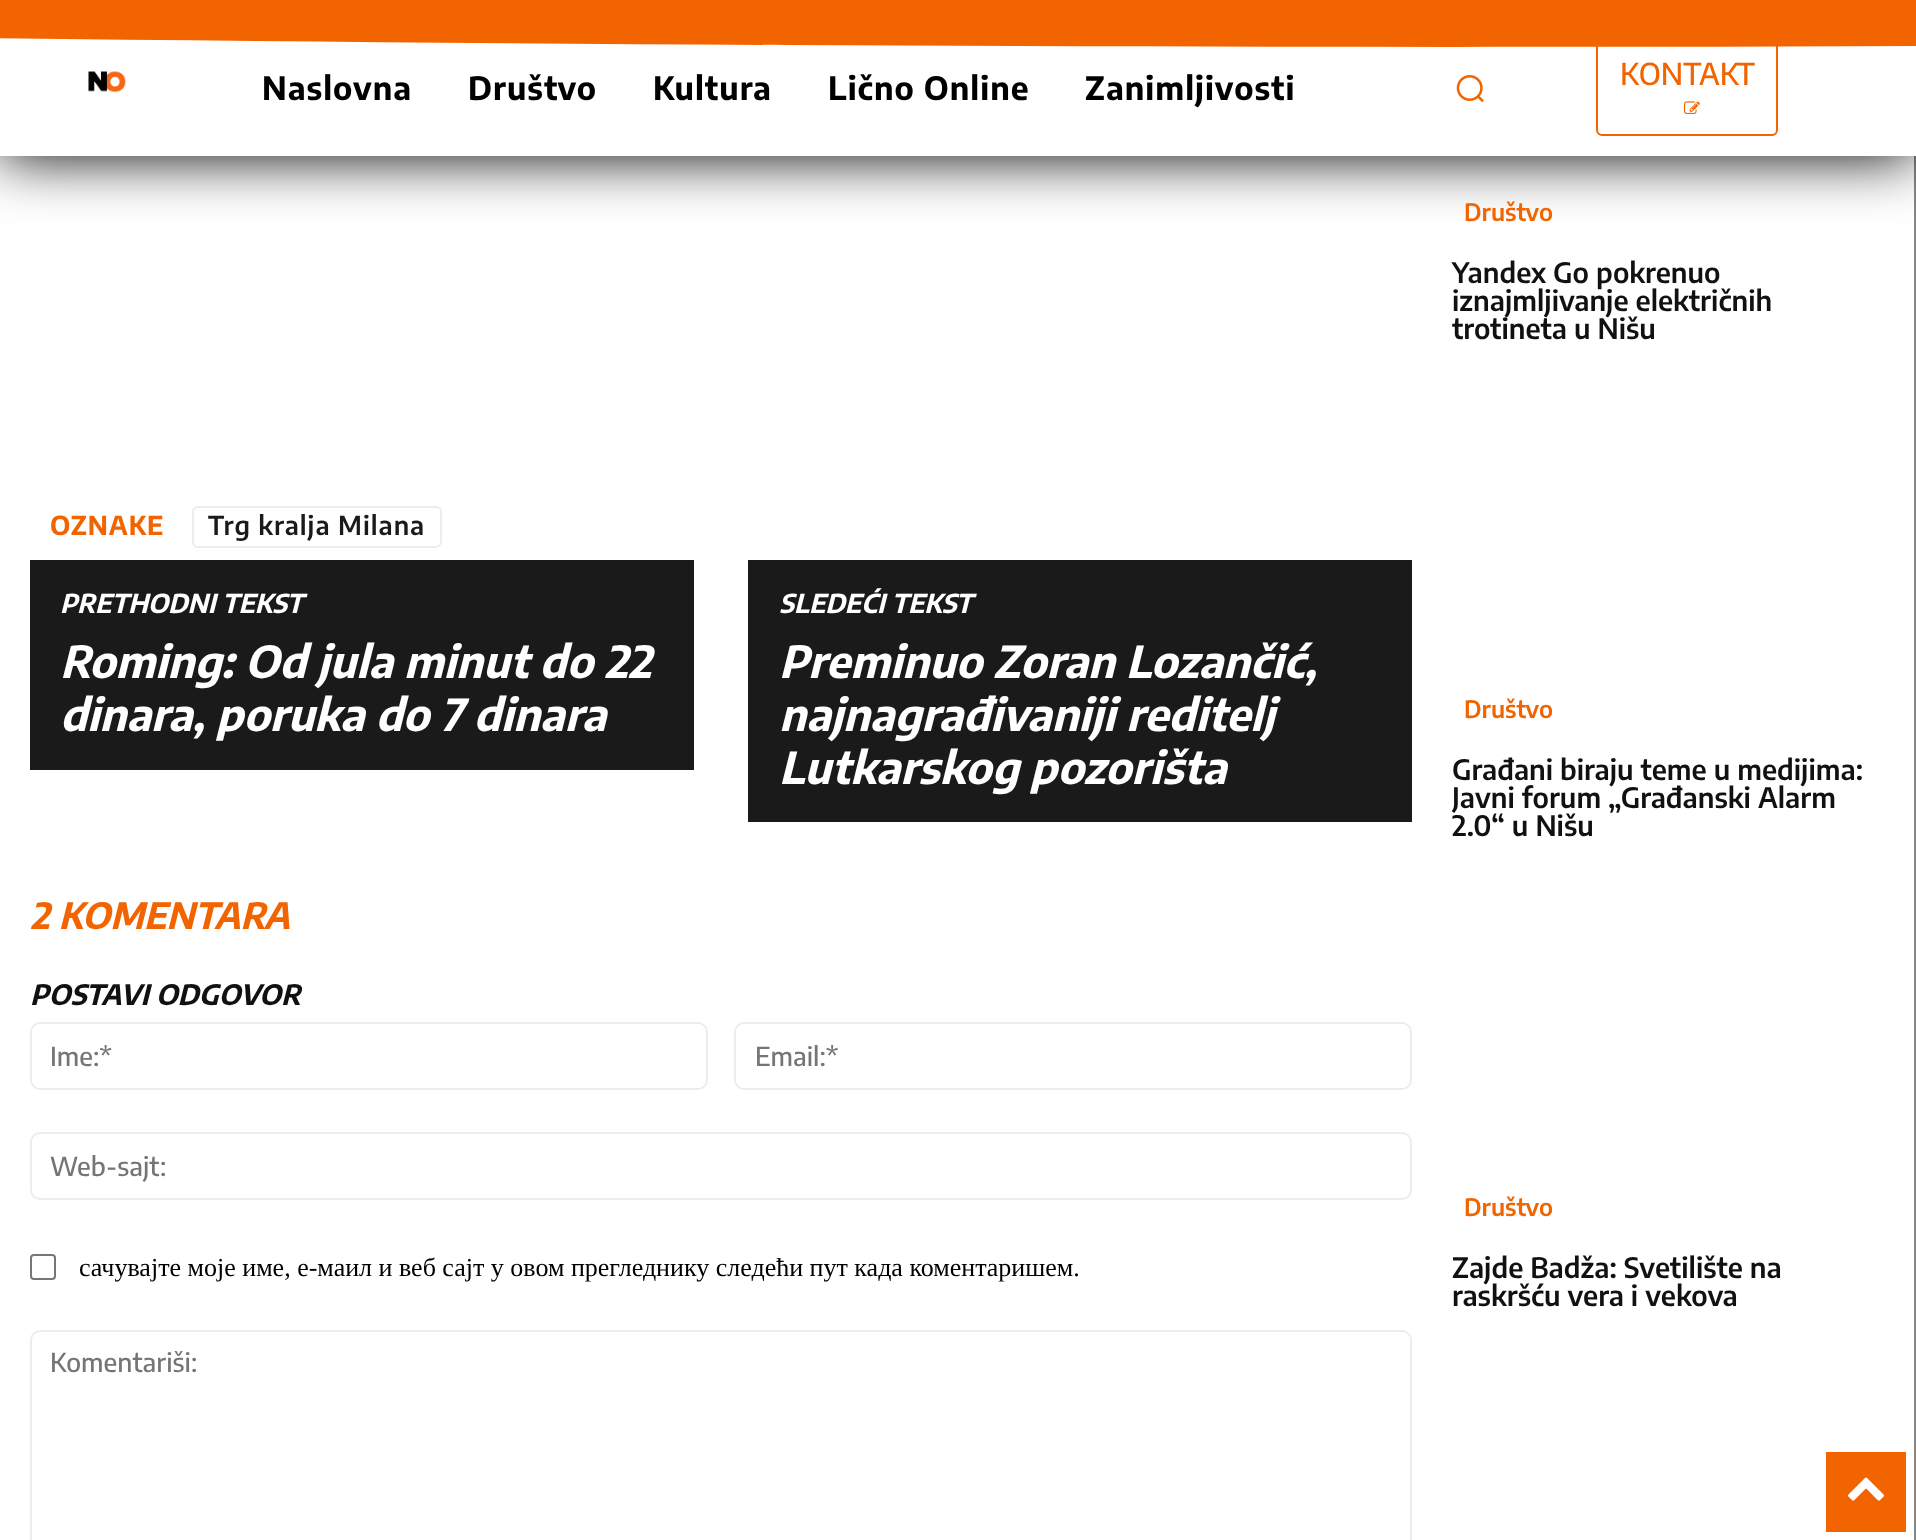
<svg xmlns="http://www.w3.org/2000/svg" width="1916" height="1540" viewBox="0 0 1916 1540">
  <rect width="100%" height="100%" fill="rgb(255,255,255)"/>
  <rect x="1914" y="156" width="2" height="1384" fill="rgb(136,136,136)"/>
  <rect x="0" y="0" width="1916" height="156" fill="rgb(0,0,0)" filter="blur(30px)"/>
  <rect x="0" y="38" width="1916" height="118" fill="rgb(255,255,255)"/>
  <path d="M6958-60V47C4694-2 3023 58 786 45C-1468 33-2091-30-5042 24V-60Z" fill="rgb(242,100,0)"/>
  <image x="88" y="71" width="38" height="22" href="pic1.png"/>
  <g font-family="Encode Sans Condensed" font-size="32" font-weight="bold" letter-spacing="1" fill="rgb(0,0,0)">
    <text x="262" y="100">Naslovna</text>
    <text x="468" y="100">Društvo</text>
    <text x="653" y="100">Kultura</text>
    <text x="828" y="100">Lično Online</text>
    <text x="1085" y="100">Zanimljivosti</text>
  </g>
  <image x="1456" y="75" width="28" height="28" href="pic2.png"/>
  <image x="1684" y="101" width="16" height="13" href="pic3.png"/>
  <rect x="1597" y="41" width="180" height="94" rx="5" fill="none" stroke="rgb(242,100,0)" stroke-width="2"/>
  <text x="1620" y="85" font-family="Encode Sans Condensed" font-size="30" font-weight="500" fill="rgb(242,100,0)">KONTAKT</text>
  <text x="50" y="535" font-family="Encode Sans Condensed" font-size="26" font-weight="bold" letter-spacing="1" fill="rgb(242,100,0)">OZNAKE</text>
  <rect x="193" y="507" width="248" height="40" rx="5" fill="none" stroke="rgb(237,237,237)" stroke-width="2"/>
  <text x="208" y="535" font-family="Encode Sans Condensed" font-size="26" font-weight="600" letter-spacing="1" fill="rgb(26,26,26)">Trg kralja Milana</text>
  <rect x="30" y="560" width="664" height="210" fill="rgb(26,26,26)"/>
  <text x="60" y="613" font-family="Encode Sans Condensed" font-size="26" font-weight="bold" font-style="italic" fill="rgb(255,255,255)">PRETHODNI TEKST</text>
  <g font-family="Encode Sans Condensed" font-size="44" font-weight="bold" font-style="italic" fill="rgb(255,255,255)">
    <text>
      <tspan x="60" y="678">Roming: Od jula minut do 22</tspan>
      <tspan x="60" y="731">dinara, poruka do 7 dinara</tspan>
    </text>
  </g>
  <rect x="748" y="560" width="664" height="262" fill="rgb(26,26,26)"/>
  <text x="779" y="613" font-family="Encode Sans Condensed" font-size="26" font-weight="bold" font-style="italic" fill="rgb(255,255,255)">SLEDEĆI TEKST</text>
  <g font-family="Encode Sans Condensed" font-size="44" font-weight="bold" font-style="italic" fill="rgb(255,255,255)">
    <text>
      <tspan x="779" y="678">Preminuo Zoran Lozančić,</tspan>
      <tspan x="779" y="731">najnagrađivaniji reditelj</tspan>
      <tspan x="779" y="784">Lutkarskog pozorišta</tspan>
    </text>
  </g>
  <text x="30" y="929" font-family="Encode Sans Condensed" font-size="36" font-weight="bold" font-style="italic" fill="rgb(242,100,0)">2 KOMENTARA</text>
  <text x="30" y="1005" font-family="Encode Sans Condensed" font-size="28" font-weight="bold" font-style="italic" fill="rgb(17,17,17)">POSTAVI ODGOVOR</text>
  <rect x="31" y="1023" width="676" height="66" rx="9" fill="none" stroke="rgb(237,237,237)" stroke-width="2"/>
  <text x="50" y="1066" font-family="Encode Sans Condensed" font-size="26" font-weight="500" fill="rgb(117,117,117)">Ime:*</text>
  <rect x="735" y="1023" width="676" height="66" rx="9" fill="none" stroke="rgb(237,237,237)" stroke-width="2"/>
  <text x="755" y="1066" font-family="Encode Sans Condensed" font-size="26" font-weight="500" fill="rgb(117,117,117)">Email:*</text>
  <rect x="31" y="1133" width="1380" height="66" rx="9" fill="none" stroke="rgb(237,237,237)" stroke-width="2"/>
  <text x="50" y="1176" font-family="Encode Sans Condensed" font-size="26" font-weight="500" fill="rgb(117,117,117)">Web-sajt:</text>
  <rect x="31" y="1255" width="24" height="24" rx="3" fill="none" stroke="rgb(118,118,118)" stroke-width="2"/>
  <text x="79" y="1276" font-family="Liberation Serif" font-size="26" fill="rgb(0,0,0)">сачувајте моје име, е-маил и веб сајт у овом прегледнику следећи пут када коментаришем.</text>
  <rect x="31" y="1331" width="1380" height="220" rx="9" fill="none" stroke="rgb(237,237,237)" stroke-width="2"/>
  <text x="50" y="1372" font-family="Encode Sans Condensed" font-size="26" font-weight="500" fill="rgb(117,117,117)">Komentariši:</text>
  <text x="1464" y="221" font-family="Encode Sans Condensed" font-size="24" font-weight="600" fill="rgb(242,100,0)">Društvo</text>
  <g font-family="Encode Sans Condensed" font-size="28" font-weight="600" fill="rgb(17,17,17)">
    <text>
      <tspan x="1452" y="283">Yandex Go pokrenuo</tspan>
      <tspan x="1452" y="311">iznajmljivanje električnih</tspan>
      <tspan x="1452" y="339">trotineta u Nišu</tspan>
    </text>
  </g>
  <text x="1464" y="718" font-family="Encode Sans Condensed" font-size="24" font-weight="600" fill="rgb(242,100,0)">Društvo</text>
  <g font-family="Encode Sans Condensed" font-size="28" font-weight="600" fill="rgb(17,17,17)">
    <text>
      <tspan x="1452" y="780">Građani biraju teme u medijima:</tspan>
      <tspan x="1452" y="808">Javni forum „Građanski Alarm</tspan>
      <tspan x="1452" y="836">2.0“ u Nišu</tspan>
    </text>
  </g>
  <text x="1464" y="1216" font-family="Encode Sans Condensed" font-size="24" font-weight="600" fill="rgb(242,100,0)">Društvo</text>
  <g font-family="Encode Sans Condensed" font-size="28" font-weight="600" fill="rgb(17,17,17)">
    <text>
      <tspan x="1452" y="1278">Zajde Badža: Svetilište na</tspan>
      <tspan x="1452" y="1306">raskršću vera i vekova</tspan>
    </text>
  </g>
  <rect x="1826" y="1452" width="80" height="80" fill="rgb(242,100,0)"/>
  <image x="1848" y="1477" width="36" height="24" href="pic4.png"/>
</svg>
